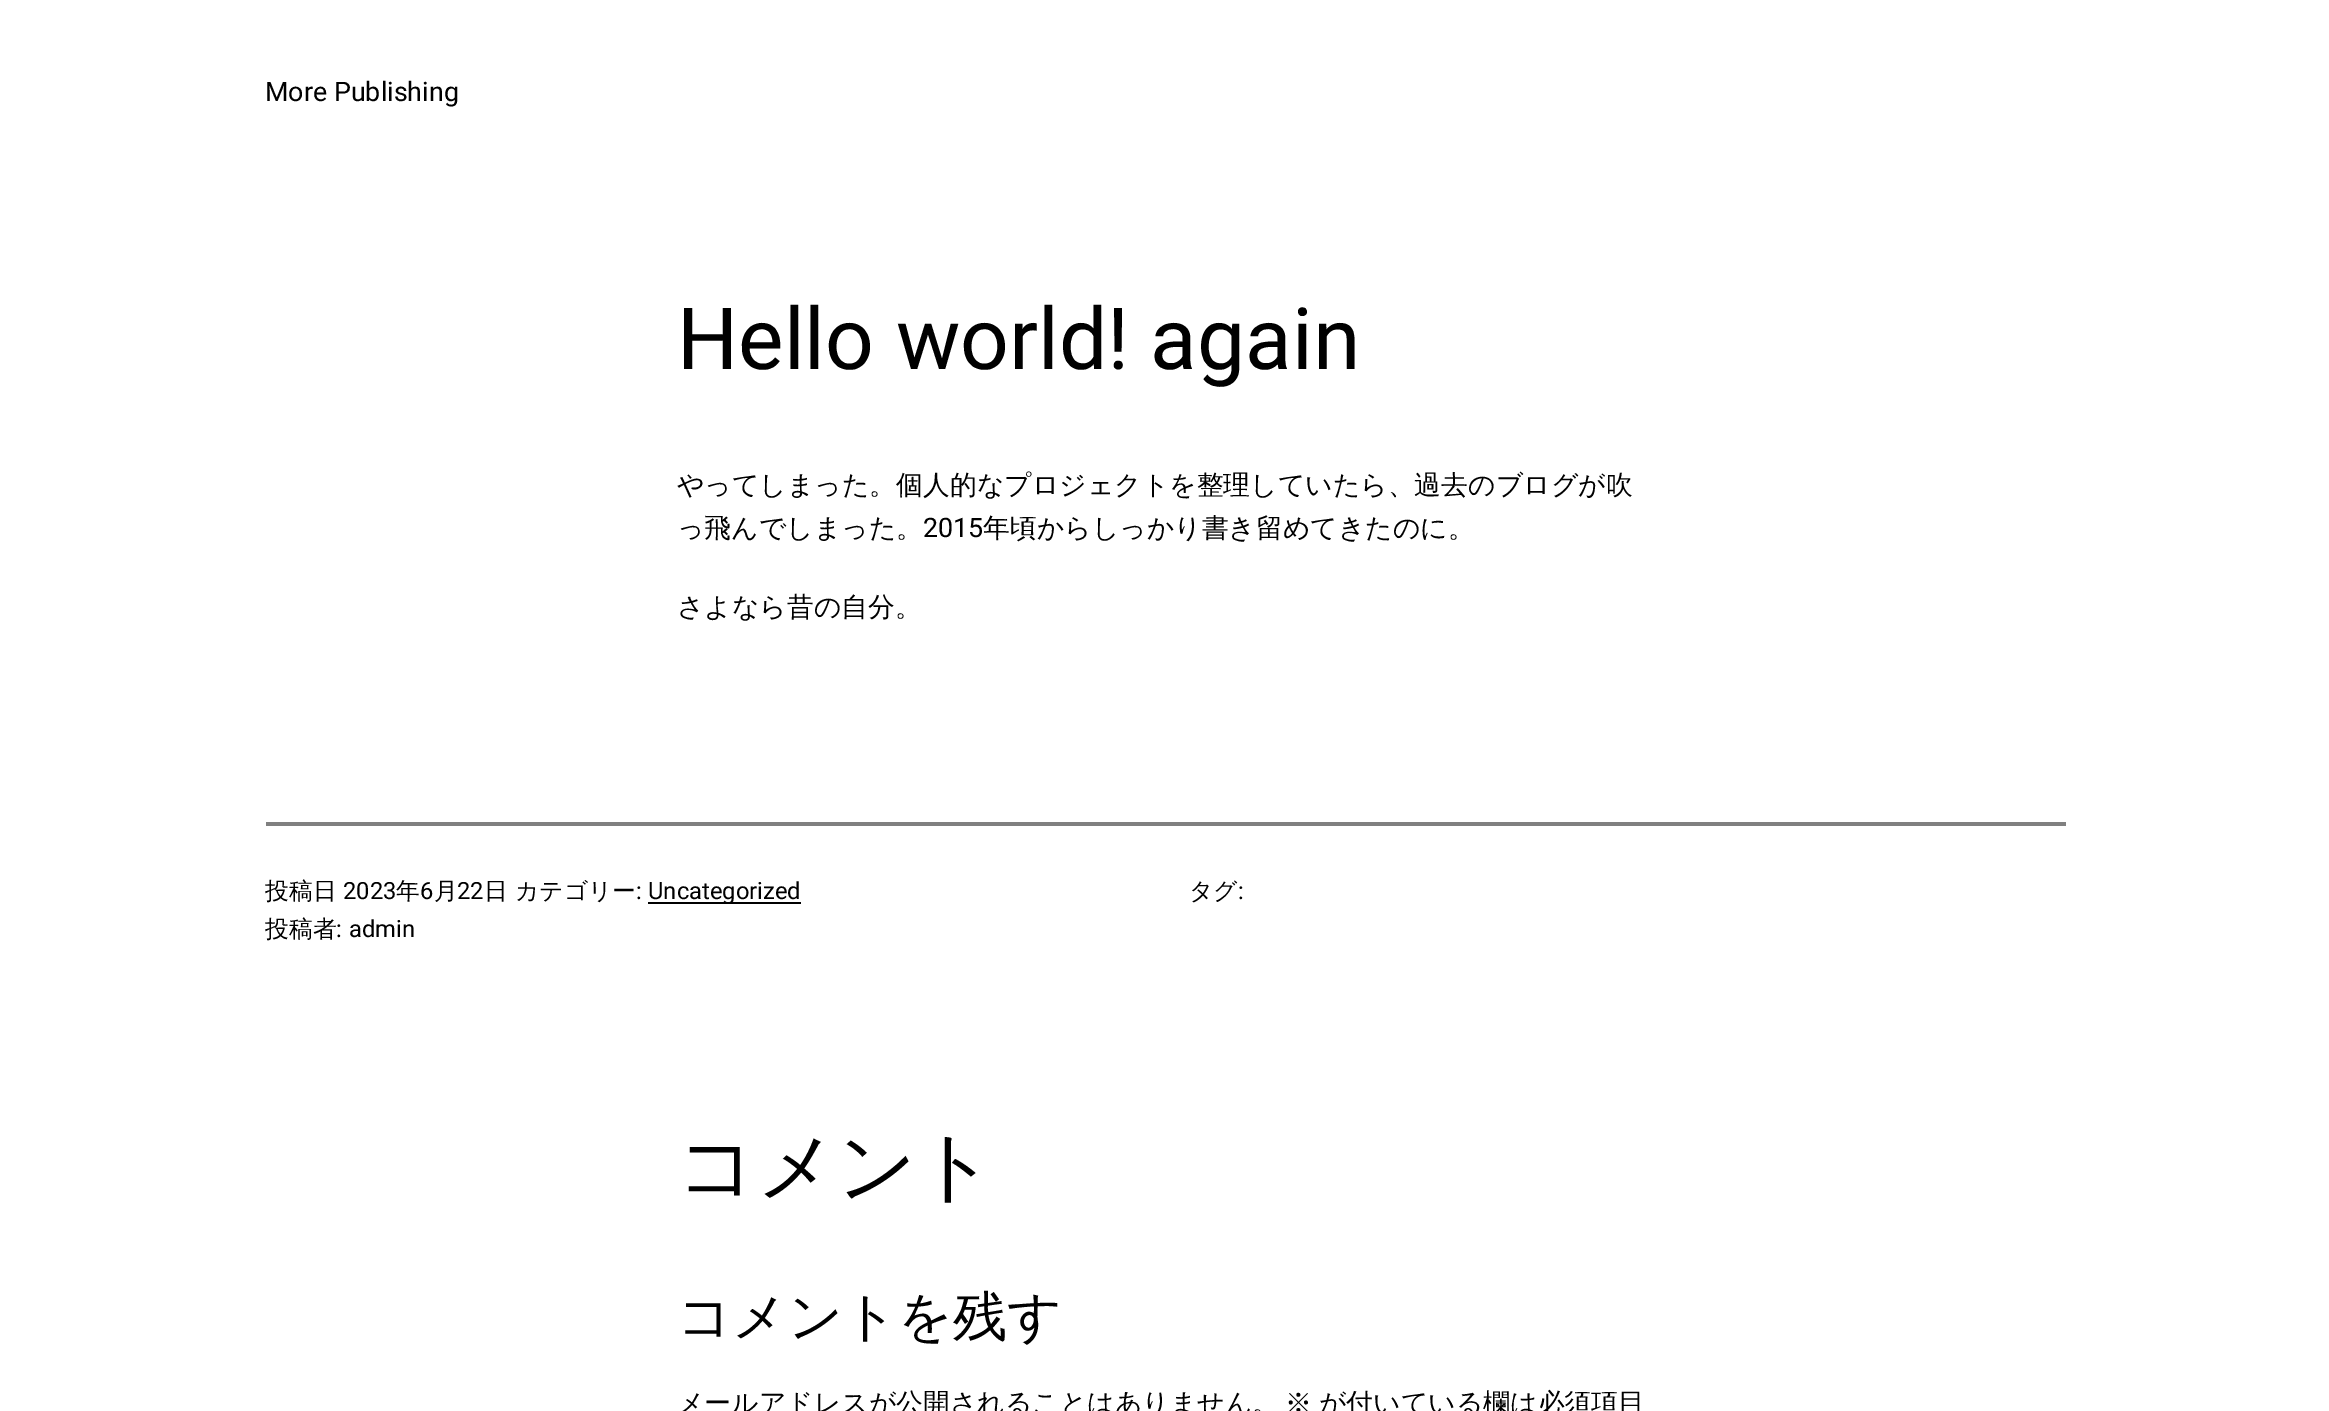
%!PS
<< /PageSize [2329 1411] >> setpagedevice
/rgb { dup -16 bitshift 255 div exch dup -8 bitshift 255 and 255 div exch 255 and 255 div setrgbcolor } def
/font { [ exch dup neg 0 0 3 -1 roll 0 0 ] selectfont } def
/text { moveto show } def
0 1411 translate 1 -1 scale
4 setmiterlimit
/s1 { /Roboto-Regular 26.85 font 16#000000 rgb } def
/s2 { /Roboto-Regular 85.75 font 16#000000 rgb } def
/s3 { /WenQuanYiZenHei-Medium 26.85 font 16#000000 rgb } def
/s4 { /WenQuanYiZenHei-Medium 23.75 font 16#000000 rgb } def
/s5 { /Roboto-Regular 23.75 font 16#000000 rgb } def
/s6 { /WenQuanYiZenHei-Medium 78 font 16#000000 rgb } def
/s7 { /WenQuanYiZenHei-Medium 54 font 16#000000 rgb } def
16#FFFFFF rgb
0 0 2329 1411 rectfill
s1
(More Publishing) 265 101 text
s2
(Hello world! again) 677 369 text
s3
(やってしまった。個人的なプロジェクトを整理していたら、過去のブログが吹) 677 494 text
(っ飛んでしまった。) 677 537 text
s1
(2015) 923 537 text
s3
(年頃からしっかり書き留めてきたのに。) 983 537 text
(さよなら昔の自分。) 677 616 text
16#808080 rgb
266 822 1800 4 rectfill
s4
(投稿日) 265 899 text
s5
(2023) 343 899 text
s4
(年) 396 899 text
s5
(6) 420 899 text
s4
(月) 434 899 text
s5
(22) 457 899 text
s4
(日) 484 899 text
(カテゴリー) 515 899 text
s5
(:) 636 899 text
648 902 153 2 rectfill
(Uncategorized) 648 899 text
s4
(投稿者) 265 937 text
s5
(:) 336 937 text
(admin) 349 937 text
s4
(タグ) 1189 899 text
s5
(:) 1238 899 text
s6
(コメント) 677 1193 text
s7
(コメントを残す) 677 1335 text
s3
(メールアドレスが公開されることはありません。) 677 1412 text
(※) 1285 1412 text
(が付いている欄は必須項目) 1319 1412 text
showpage
